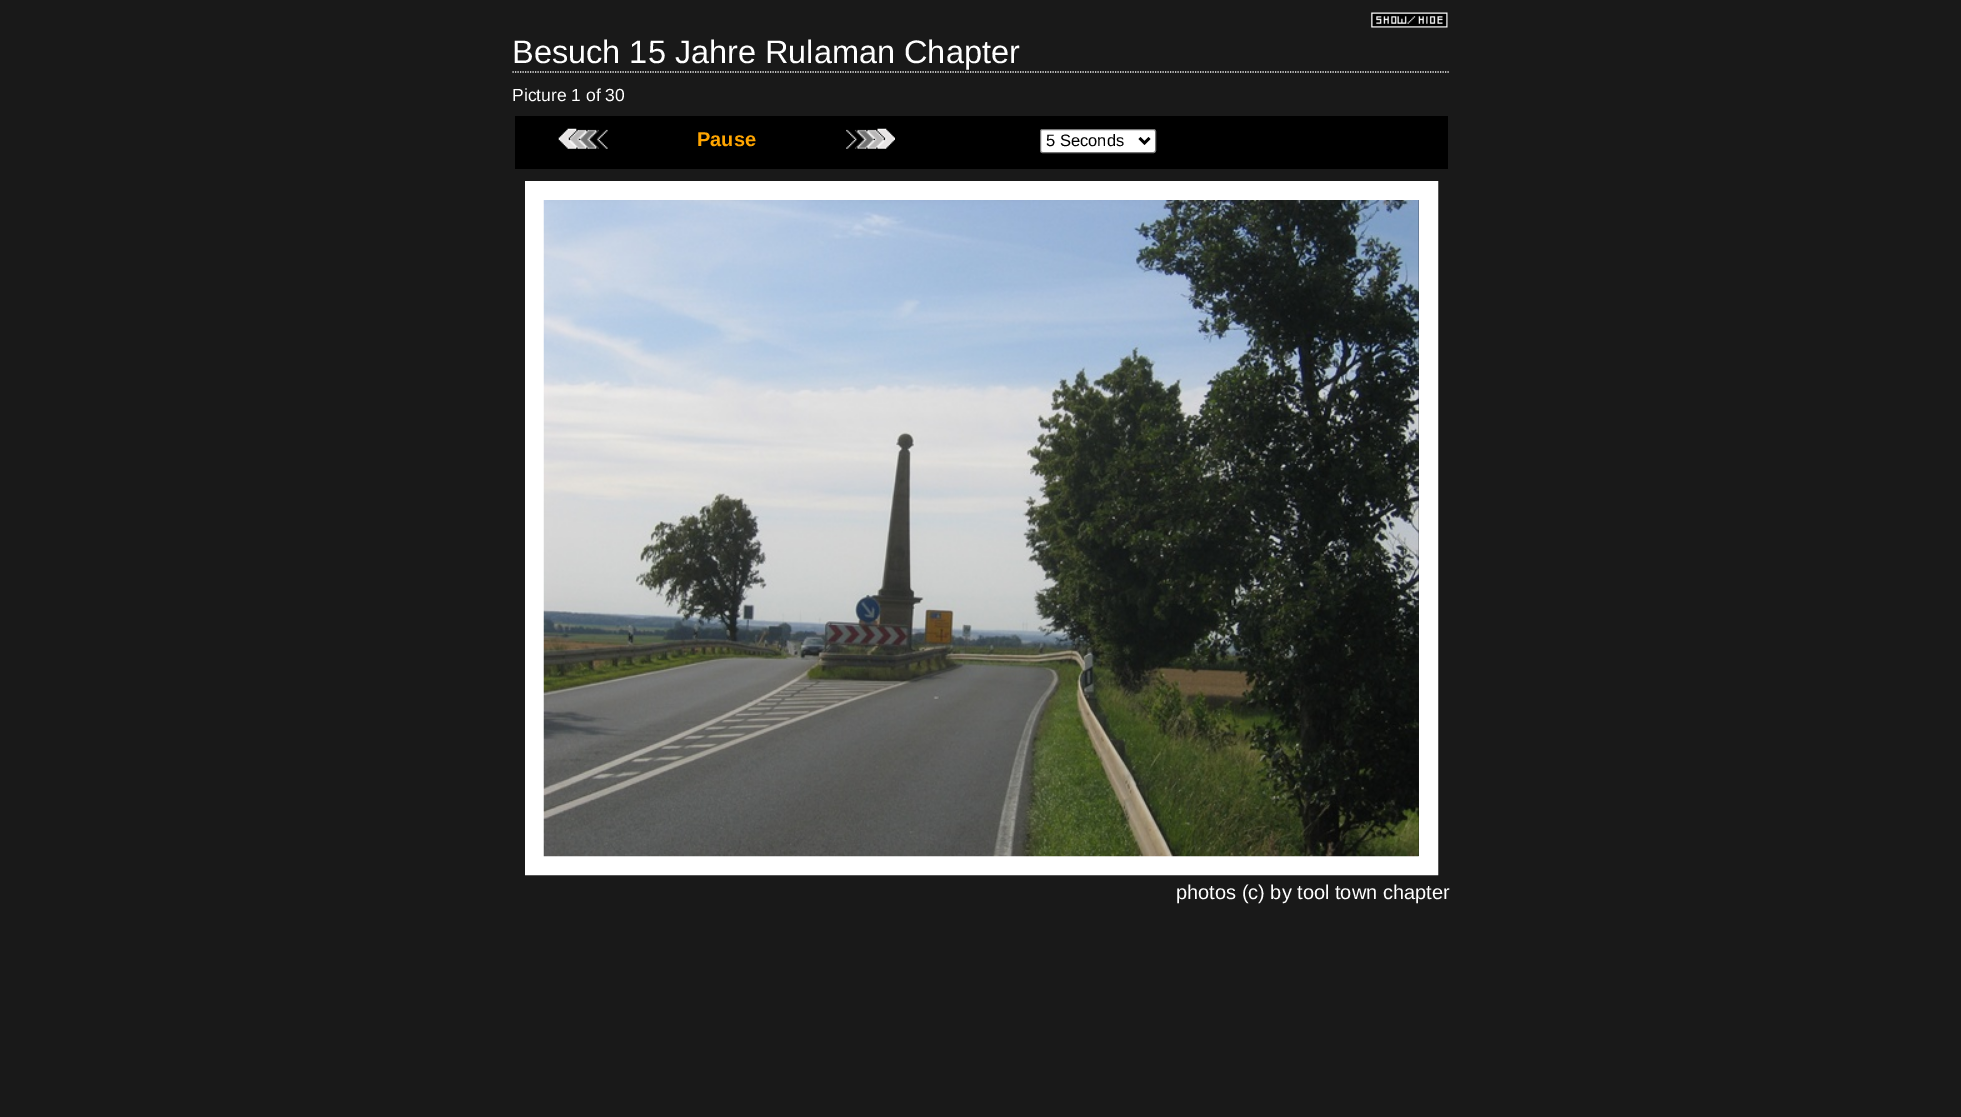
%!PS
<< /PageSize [1961 1117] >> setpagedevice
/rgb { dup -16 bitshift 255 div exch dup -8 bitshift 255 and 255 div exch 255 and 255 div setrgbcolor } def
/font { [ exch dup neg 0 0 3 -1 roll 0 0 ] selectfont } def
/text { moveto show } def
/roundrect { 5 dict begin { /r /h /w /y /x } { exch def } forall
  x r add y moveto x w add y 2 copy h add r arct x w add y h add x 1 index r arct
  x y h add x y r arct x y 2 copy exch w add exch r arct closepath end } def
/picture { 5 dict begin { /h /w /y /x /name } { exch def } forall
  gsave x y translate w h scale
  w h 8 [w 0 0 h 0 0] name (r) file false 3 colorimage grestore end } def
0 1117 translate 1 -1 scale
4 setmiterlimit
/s1 { /LiberationSans-Regular 32.5 font 16#FFFFFF rgb } def
/s2 { /LiberationSans-Regular 17.5 font 16#FFFFFF rgb } def
/s3 { /LiberationSans-Bold 20 font 16#FFA500 rgb } def
/s4 { /LiberationSans-Regular 16.5 font 16#000000 rgb } def
/s5 { /LiberationSans-Regular 20 font 16#FFFFFF rgb } def
16#191919 rgb
0 0 1961 1117 rectfill
(pic1.raw) 1371 12 77 16 picture
16#FFFFFF rgb
1.2 setlinewidth
[1.25 1.25] 0 setdash
512.5 72 moveto 1450 72 lineto stroke
s1
(Besuch 15 Jahre Rulaman Chapter) 512 63 text
s2
(Picture 1 of 30) 512 101 text
16#000000 rgb
515 116 933 53 rectfill
(pic2.raw) 558 128 50 21 picture
s3
(Pause) 697 146 text
(pic3.raw) 846 128 49 21 picture
16#FFFFFF rgb
1040.5 129.5 115 23 2 roundrect gsave fill grestore
16#767676 rgb
1 setlinewidth
[] 0 setdash
stroke
16#000000 rgb
2.5 setlinewidth
1139.5 138 moveto 1144.5 143 lineto 1149.5 138 lineto stroke
s4
(5 Seconds) 1046 146 text
16#FFFFFF rgb
19 setlinewidth
534.5 190.5 894 675 rectstroke
(pic4.raw) 543 200 876 657 picture
s5
(photos \(c\) by tool town chapter) 1176 899 text
showpage
